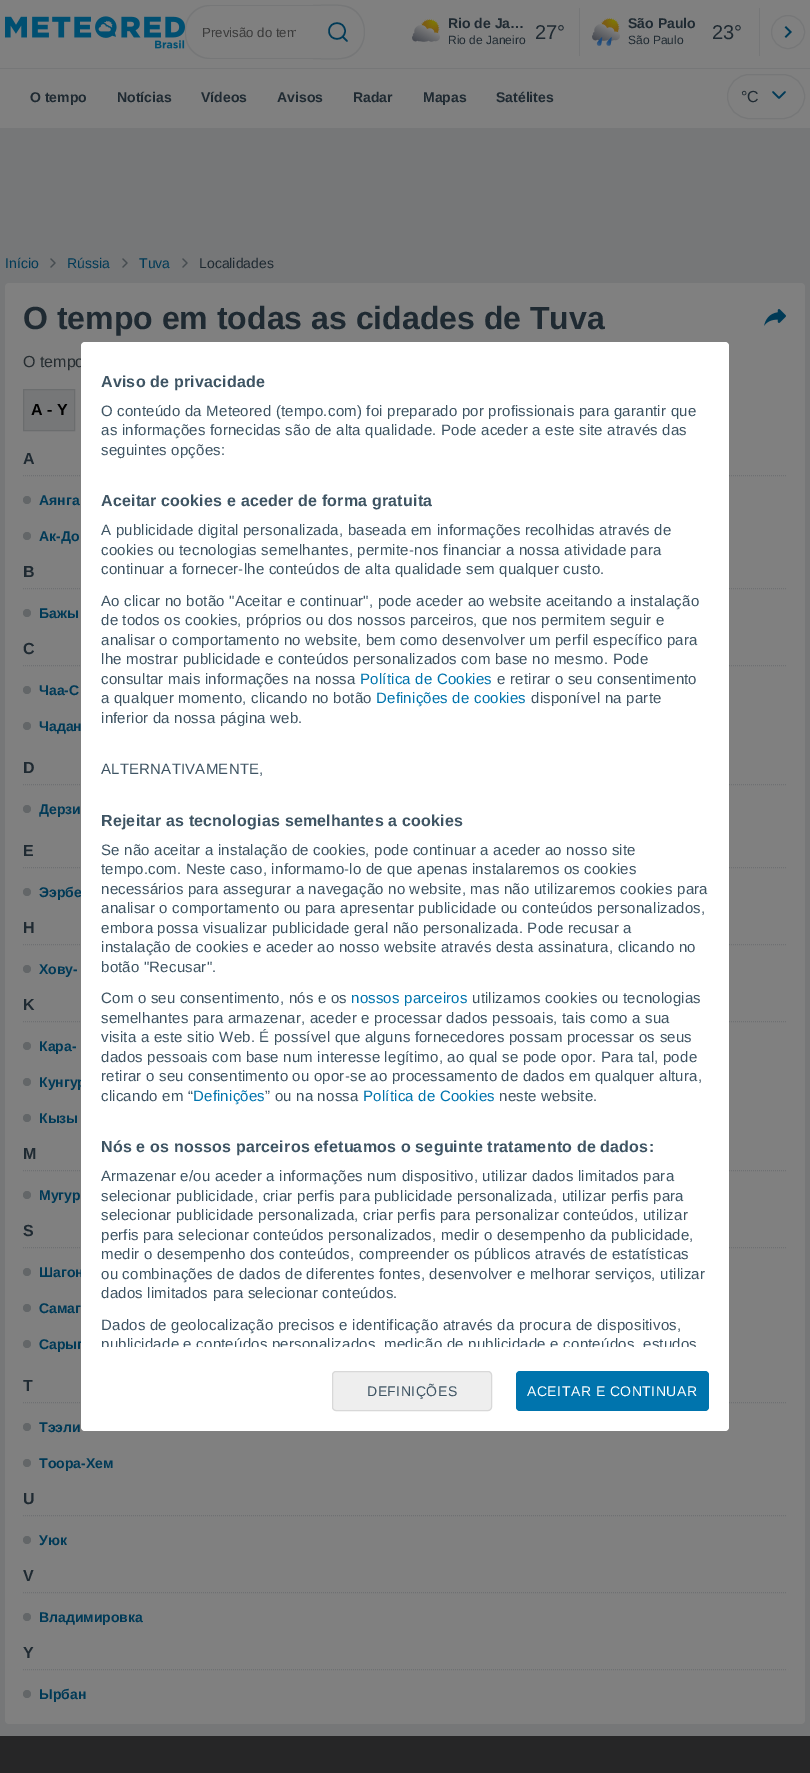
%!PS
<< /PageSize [810 1773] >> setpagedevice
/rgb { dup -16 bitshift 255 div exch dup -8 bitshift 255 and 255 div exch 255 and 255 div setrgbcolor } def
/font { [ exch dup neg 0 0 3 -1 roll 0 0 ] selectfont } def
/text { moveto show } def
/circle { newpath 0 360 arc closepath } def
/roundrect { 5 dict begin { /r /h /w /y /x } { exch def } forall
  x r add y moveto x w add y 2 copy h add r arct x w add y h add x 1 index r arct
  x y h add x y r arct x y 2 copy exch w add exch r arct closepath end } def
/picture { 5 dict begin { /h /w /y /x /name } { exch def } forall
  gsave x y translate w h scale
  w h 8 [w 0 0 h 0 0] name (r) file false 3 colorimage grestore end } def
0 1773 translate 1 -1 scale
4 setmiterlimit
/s1 { /LiberationSans-Regular 13.25 font 16#3B3B3B rgb } def
/s2 { /LiberationSans-Bold 14 font 16#1F2A32 rgb } def
/s3 { /LiberationSans-Regular 12 font 16#1F2A32 rgb } def
/s4 { /LiberationSans-Regular 20 font 16#1F2A32 rgb } def
/s5 { /LiberationSans-Regular 16 font 16#1F2A32 rgb } def
/s6 { /LiberationSans-Regular 14 font 16#003A57 rgb } def
/s7 { /LiberationSans-Regular 14 font 16#1F2A32 rgb } def
/s8 { /LiberationSans-Bold 32 font 16#1F2A32 rgb } def
/s9 { /LiberationSans-Regular 16 font 16#262D31 rgb } def
/s10 { /LiberationSans-Bold 16 font 16#000000 rgb } def
/s11 { /LiberationSans-Bold 16 font 16#1F2A32 rgb } def
/s12 { /LiberationSans-Bold 14 font 16#003A57 rgb } def
16#767778 rgb
0 0 810 1773 rectfill
16#808080 rgb
0 0 810 128 rectfill
16#767778 rgb
0 68 810 1 rectfill
(pic1.raw) 5 16 180 33 picture
210 5 moveto 312 5 lineto 312 59 lineto 210 59 lineto 196 59 185 48 185 34 curveto 185 30 lineto 185 16 196 5 210 5 curveto closepath 210 6 moveto 312 6 lineto 312 58 lineto 210 58 lineto 197 58 186 47 186 34 curveto 186 30 lineto 186 17 197 6 210 6 curveto closepath eofill
gsave
202 25 94 15 rectclip
s1
(Previsão do tem) 202 37 text
grestore
312 5 moveto 322 5 341 3 350 7 curveto 370 16 370 48 350 57 curveto 341 61 322 59 312 59 curveto closepath 312 6 moveto 322 6 341 4 349 8 curveto 369 16 369 48 349 56 curveto 341 60 322 58 312 58 curveto closepath eofill
16#003A57 rgb
1.5 setlinewidth
1 setlinecap
1 setlinejoin
347 41 moveto 342.5 36.5 lineto 345 31 moveto 345 41.5 329 41.5 329 31 curveto 329 20.5 345 20.5 345 31 curveto closepath stroke
(pic2.raw) 412 19 28 23 picture
s2
(Rio de Ja…) 448 28 text
s3
(Rio de Janeiro) 448 44 text
s4
(27°) 535 39 text
16#767778 rgb
579 8 1 48 rectfill
(pic3.raw) 592 18 28 28 picture
s2
(São Paulo) 628 28 text
s3
(São Paulo) 628 44 text
s4
(23°) 712 39 text
16#767778 rgb
759 8 1 48 rectfill
1 setlinewidth
0 setlinecap
0 setlinejoin
788 32 16.5 circle stroke
(pic4.raw) 784 26 8 12 picture
s2
(O tempo) 30 102 text
(Notícias) 117 102 text
(Vídeos) 201 102 text
(Avisos) 277 102 text
(Radar) 353 102 text
(Mapas) 423 102 text
(Satélites) 496 102 text
16#767778 rgb
727.5 74.5 77 44 22 roundrect stroke
s5
(°C) 741 102 text
16#003A57 rgb
1.5 setlinewidth
1 setlinecap
1 setlinejoin
773 92 moveto 779 98 lineto 785 92 lineto stroke
s6
(Início) 5 268 text
(pic5.raw) 50 258 6 10 picture
(Rússia) 67 268 text
(pic5.raw) 122 258 6 10 picture
(Tuva) 139 268 text
(pic5.raw) 182 258 6 10 picture
s7
(Localidades) 199 268 text
16#808080 rgb
5 283 800 1441 4 roundrect fill
s8
(O tempo em todas as cidades de Tuva) 23 329 text
(pic6.raw) 764 309 22 17 picture
s9
(O tempo) 23 367 text
16#767778 rgb
23.5 389.5 moveto 74.5 389.5 lineto 74.5 430.5 lineto 23.5 430.5 lineto closepath gsave fill grestore
16#6B6D6E rgb
1 setlinewidth
0 setlinecap
0 setlinejoin
stroke
s10
(A - Y) 31 415 text
16#6E7072 rgb
[1 1] 0 setdash
23 475.5 moveto 787 475.5 lineto stroke
s11
(A) 23 464 text
16#636668 rgb
27 500 4 circle fill
s12
(Аянга) 39 505 text
16#636668 rgb
27 536 4 circle fill
s12
(Ак-До) 39 541 text
16#6E7072 rgb
23 588.5 moveto 787 588.5 lineto stroke
s11
(B) 23 577 text
16#636668 rgb
27 613 4 circle fill
s12
(Бажы) 39 618 text
16#6E7072 rgb
23 665.5 moveto 787 665.5 lineto stroke
s11
(C) 23 654 text
16#636668 rgb
27 690 4 circle fill
s12
(Чаа-С) 39 695 text
16#636668 rgb
27 726 4 circle fill
s12
(Чадан) 39 731 text
16#6E7072 rgb
23 784.5 moveto 787 784.5 lineto stroke
s11
(D) 23 773 text
16#636668 rgb
27 809 4 circle fill
s12
(Дерзи) 39 814 text
16#6E7072 rgb
23 867.5 moveto 787 867.5 lineto stroke
s11
(E) 23 856 text
16#636668 rgb
27 892 4 circle fill
s12
(Ээрбе) 39 897 text
16#6E7072 rgb
23 944.5 moveto 787 944.5 lineto stroke
s11
(H) 23 933 text
16#636668 rgb
27 969 4 circle fill
s12
(Хову-) 39 974 text
16#6E7072 rgb
23 1021.5 moveto 787 1021.5 lineto stroke
s11
(K) 23 1010 text
16#636668 rgb
27 1046 4 circle fill
s12
(Кара-) 39 1051 text
16#636668 rgb
27 1082 4 circle fill
s12
(Кунгур) 39 1087 text
16#636668 rgb
27 1118 4 circle fill
s12
(Кызы) 39 1123 text
16#6E7072 rgb
23 1170.5 moveto 787 1170.5 lineto stroke
s11
(M) 23 1159 text
16#636668 rgb
27 1195 4 circle fill
s12
(Мугур) 39 1200 text
16#6E7072 rgb
23 1247.5 moveto 787 1247.5 lineto stroke
s11
(S) 23 1236 text
16#636668 rgb
27 1272 4 circle fill
s12
(Шагон) 39 1277 text
16#636668 rgb
27 1308 4 circle fill
s12
(Самаг) 39 1313 text
16#636668 rgb
27 1344 4 circle fill
s12
(Сарыг) 39 1349 text
16#6E7072 rgb
23 1402.5 moveto 787 1402.5 lineto stroke
s11
(T) 23 1391 text
16#636668 rgb
27 1427 4 circle fill
s12
(Тээли) 39 1432 text
16#636668 rgb
27 1463 4 circle fill
s12
(Тоора-Хем) 39 1468 text
16#6E7072 rgb
23 1515.5 moveto 787 1515.5 lineto stroke
s11
(U) 23 1504 text
16#636668 rgb
27 1540 4 circle fill
s12
(Уюк) 39 1545 text
16#6E7072 rgb
23 1592.5 moveto 787 1592.5 lineto stroke
s11
(V) 23 1581 text
16#636668 rgb
27 1617 4 circle fill
s12
(Владимировка) 39 1622 text
16#6E7072 rgb
23 1669.5 moveto 787 1669.5 lineto stroke
s11
(Y) 23 1658 text
16#636668 rgb
27 1694 4 circle fill
s12
(Ырбан) 39 1699 text
16#FFFFFF rgb
81 342 648 1089 4 roundrect fill
/LiberationSans-Bold 16 font
16#3E5463 rgb
101 387 moveto 0.2 0 (Aviso de privacidade) ashow
/LiberationSans-Regular 15 font
101 416 moveto 0.2 0 (O conteúdo da Meteored \(tempo.com\) foi preparado por profissionais para garantir que) ashow
101 435 moveto 0.2 0 (as informações fornecidas são de alta qualidade. Pode aceder a este site através das) ashow
101 455 moveto 0.2 0 (seguintes opções:) ashow
/LiberationSans-Bold 16 font
101 506 moveto 0.2 0 (Aceitar cookies e aceder de forma gratuita) ashow
/LiberationSans-Regular 15 font
101 535 moveto 0.2 0 (A publicidade digital personalizada, baseada em informações recolhidas através de) ashow
101 555 moveto 0.2 0 (cookies ou tecnologias semelhantes, permite-nos financiar a nossa atividade para) ashow
101 574 moveto 0.2 0 (continuar a fornecer-lhe conteúdos de alta qualidade sem qualquer custo.) ashow
101 606 moveto 0.2 0 (Ao clicar no botão "Aceitar e continuar", pode aceder ao website aceitando a instalação) ashow
101 625 moveto 0.2 0 (de todos os cookies, próprios ou dos nossos parceiros, que nos permitem seguir e) ashow
101 645 moveto 0.2 0 (analisar o comportamento no website, bem como desenvolver um perfil específico para) ashow
101 664 moveto 0.2 0 (lhe mostrar publicidade e conteúdos personalizados com base no mesmo. Pode) ashow
101 684 moveto 0.2 0 (consultar mais informações na nossa) ashow
16#0074AD rgb
360 684 moveto 0.2 0 (Política de Cookies) ashow
16#3E5463 rgb
497 684 moveto 0.2 0 (e retirar o seu consentimento) ashow
101 703 moveto 0.2 0 (a qualquer momento, clicando no botão) ashow
16#0074AD rgb
376 703 moveto 0.2 0 (Definições de cookies) ashow
16#3E5463 rgb
531 703 moveto 0.2 0 (disponível na parte) ashow
101 723 moveto 0.2 0 (inferior da nossa página web.) ashow
101 774 moveto 0.2 0 (ALTERNATIVAMENTE,) ashow
/LiberationSans-Bold 16 font
101 826 moveto 0.2 0 (Rejeitar as tecnologias semelhantes a cookies) ashow
/LiberationSans-Regular 15 font
101 855 moveto 0.2 0 (Se não aceitar a instalação de cookies, pode continuar a aceder ao nosso site) ashow
101 874 moveto 0.2 0 (tempo.com. Neste caso, informamo-lo de que apenas instalaremos os cookies) ashow
101 894 moveto 0.2 0 (necessários para assegurar a navegação no website, mas não utilizaremos cookies para) ashow
101 913 moveto 0.2 0 (analisar o comportamento ou para apresentar publicidade ou conteúdos personalizados,) ashow
101 933 moveto 0.2 0 (embora possa visualizar publicidade geral não personalizada. Pode recusar a) ashow
101 952 moveto 0.2 0 (instalação de cookies e aceder ao nosso website através desta assinatura, clicando no) ashow
101 972 moveto 0.2 0 (botão "Recusar".) ashow
101 1003 moveto 0.2 0 (Com o seu consentimento, nós e os) ashow
16#0074AD rgb
351 1003 moveto 0.2 0 (nossos parceiros) ashow
16#3E5463 rgb
472 1003 moveto 0.2 0 (utilizamos cookies ou tecnologias) ashow
101 1023 moveto 0.2 0 (semelhantes para armazenar, aceder e processar dados pessoais, tais como a sua) ashow
101 1042 moveto 0.2 0 (visita a este sitio Web. É possível que alguns fornecedores possam processar os seus) ashow
101 1062 moveto 0.2 0 (dados pessoais com base num interesse legítimo, ao qual se pode opor. Para tal, pode) ashow
101 1081 moveto 0.2 0 (retirar o seu consentimento ou opor-se ao processamento de dados em qualquer altura,) ashow
101 1101 moveto 0.2 0 (clicando em “) ashow
16#0074AD rgb
193 1101 moveto 0.2 0 (Definições) ashow
16#3E5463 rgb
265 1101 moveto 0.2 0 (” ou na nossa) ashow
16#0074AD rgb
363 1101 moveto 0.2 0 (Política de Cookies) ashow
16#3E5463 rgb
499 1101 moveto 0.2 0 (neste website.) ashow
/LiberationSans-Bold 16 font
101 1152 moveto 0.2 0 (Nós e os nossos parceiros efetuamos o seguinte tratamento de dados:) ashow
/LiberationSans-Regular 15 font
101 1181 moveto 0.2 0 (Armazenar e/ou aceder a informações num dispositivo, utilizar dados limitados para) ashow
101 1201 moveto 0.2 0 (selecionar publicidade, criar perfis para publicidade personalizada, utilizar perfis para) ashow
101 1220 moveto 0.2 0 (selecionar publicidade personalizada, criar perfis para personalizar conteúdos, utilizar) ashow
101 1240 moveto 0.2 0 (perfis para selecionar conteúdos personalizados, medir o desempenho da publicidade,) ashow
101 1259 moveto 0.2 0 (medir o desempenho dos conteúdos, compreender os públicos através de estatísticas) ashow
101 1279 moveto 0.2 0 (ou combinações de dados de diferentes fontes, desenvolver e melhorar serviços, utilizar) ashow
101 1298 moveto 0.2 0 (dados limitados para selecionar conteúdos.) ashow
101 1330 moveto 0.2 0 (Dados de geolocalização precisos e identificação através da procura de dispositivos,) ashow
gsave
101 372 608 975 rectclip
101 1349 moveto 0.2 0 (publicidade e conteúdos personalizados, medição de publicidade e conteúdos, estudos) ashow
grestore
16#EEEEEE rgb
332.5 1371.5 159 39 3.5 roundrect gsave fill grestore
16#D8D8D8 rgb
[] 0 setdash
stroke
/LiberationSans-Regular 14 font
16#3E5463 rgb
367 1396 moveto 0.5 0 (DEFINIÇÕES) ashow
16#0074AD rgb
516 1371 193 40 4 roundrect fill
16#FFFFFF rgb
527 1396 moveto 0.5 0 (ACEITAR E CONTINUAR) ashow
16#262627 rgb
0 1736 810 37 rectfill
showpage
